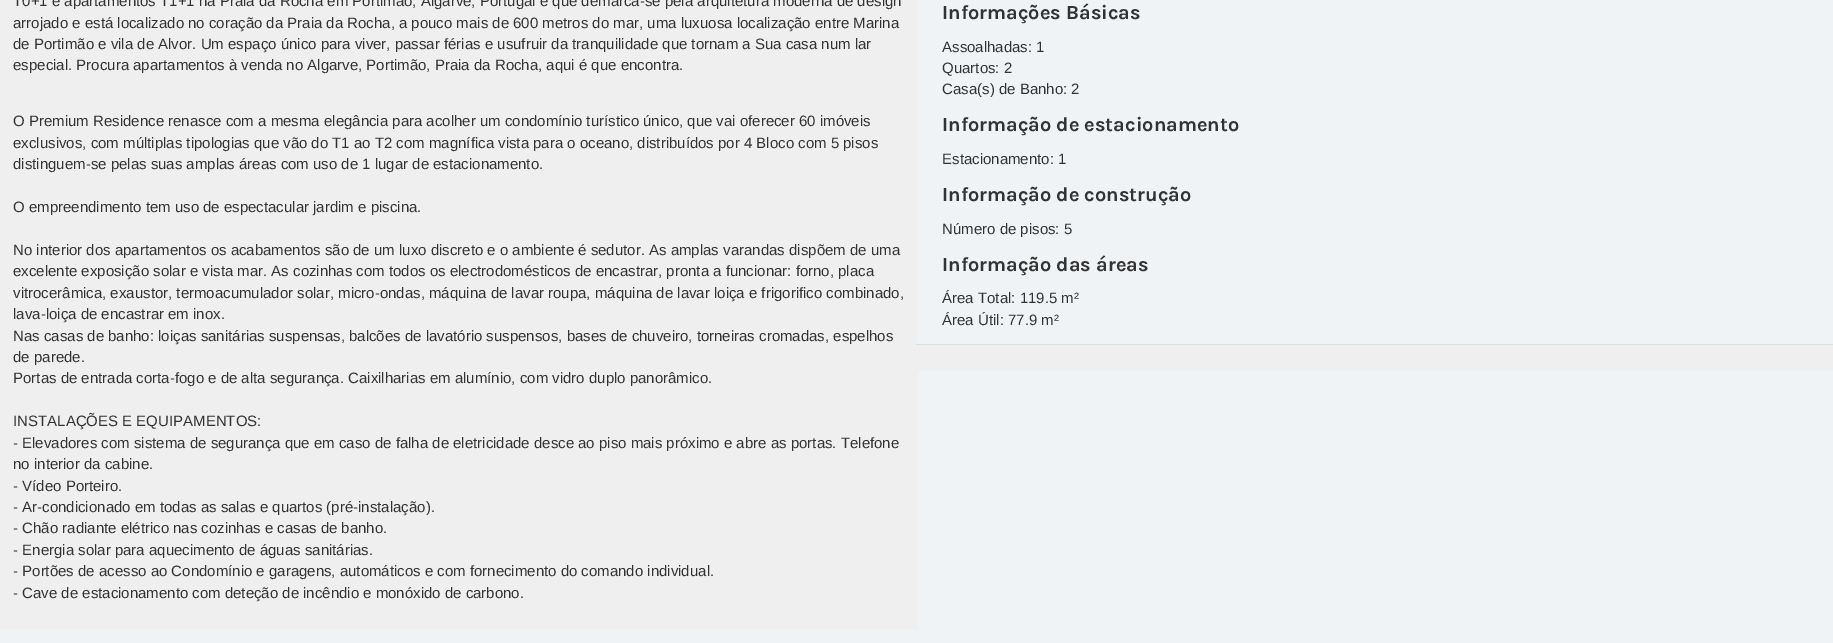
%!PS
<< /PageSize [1833 643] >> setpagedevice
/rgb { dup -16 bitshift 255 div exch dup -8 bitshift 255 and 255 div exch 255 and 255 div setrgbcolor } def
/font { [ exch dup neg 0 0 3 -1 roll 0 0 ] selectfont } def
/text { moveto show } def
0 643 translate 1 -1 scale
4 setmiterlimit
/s1 { /LiberationSans-Regular 15 font 16#333333 rgb } def
/s2 { /Karla-Bold 20 font 16#333333 rgb } def
16#F0F3F6 rgb
0 0 1833 643 rectfill
16#EFEFEF rgb
0 0 918 630 rectfill
s1
(T0+1 e apartamentos T1+1 na Praia da Rocha em Portimão, Algarve, Portugal e que demarca-se pela arquitetura moderna de design) 13 6 text
(arrojado e está localizado no coração da Praia da Rocha, a pouco mais de 600 metros do mar, uma luxuosa localização entre Marina) 13 28 text
(de Portimão e vila de Alvor. Um espaço único para viver, passar férias e usufruir da tranquilidade que tornam a Sua casa num lar) 13 49 text
(especial. Procura apartamentos à venda no Algarve, Portimão, Praia da Rocha, aqui é que encontra.) 13 70 text
(O Premium Residence renasce com a mesma elegância para acolher um condomínio turístico único, que vai oferecer 60 imóveis) 13 126 text
(exclusivos, com múltiplas tipologias que vão do T1 ao T2 com magnífica vista para o oceano, distribuídos por 4 Bloco com 5 pisos) 13 148 text
(distinguem-se pelas suas amplas áreas com uso de 1 lugar de estacionamento.) 13 169 text
(O empreendimento tem uso de espectacular jardim e piscina.) 13 212 text
(No interior dos apartamentos os acabamentos são de um luxo discreto e o ambiente é sedutor. As amplas varandas dispõem de uma) 13 255 text
(excelente exposição solar e vista mar. As cozinhas com todos os electrodomésticos de encastrar, pronta a funcionar: forno, placa) 13 276 text
(vitrocerâmica, exaustor, termoacumulador solar, micro-ondas, máquina de lavar roupa, máquina de lavar loiça e frigorifico combinado,) 13 298 text
(lava-loiça de encastrar em inox.) 13 319 text
(Nas casas de banho: loiças sanitárias suspensas, balcões de lavatório suspensos, bases de chuveiro, torneiras cromadas, espelhos) 13 341 text
(de parede.) 13 362 text
(Portas de entrada corta-fogo e de alta segurança. Caixilharias em alumínio, com vidro duplo panorâmico.) 13 383 text
(INSTALAÇÕES E EQUIPAMENTOS:) 13 426 text
(- Elevadores com sistema de segurança que em caso de falha de eletricidade desce ao piso mais próximo e abre as portas. Telefone) 13 448 text
(no interior da cabine.) 13 469 text
(- Vídeo Porteiro.) 13 491 text
(- Ar-condicionado em todas as salas e quartos \(pré-instalação\).) 13 512 text
(- Chão radiante elétrico nas cozinhas e casas de banho.) 13 533 text
(- Energia solar para aquecimento de águas sanitárias.) 13 555 text
(- Portões de acesso ao Condomínio e garagens, automáticos e com fornecimento do comando individual.) 13 576 text
(- Cave de estacionamento com deteção de incêndio e monóxido de carbono.) 13 598 text
s2
(Informações Básicas) 942 19 text
s1
(Assoalhadas: 1) 942 52 text
(Quartos: 2) 942 73 text
(Casa\(s\) de Banho: 2) 942 94 text
s2
(Informação de estacionamento) 942 131 text
s1
(Estacionamento: 1) 942 164 text
s2
(Informação de construção) 942 201 text
s1
(Número de pisos: 5) 942 234 text
s2
(Informação das áreas) 942 271 text
s1
(Área Total: 119.5 m²) 942 303 text
(Área Útil: 77.9 m²) 942 325 text
16#EFEFEF rgb
918 345 915 25 rectfill
16#DDDDDD rgb
916 344 917 1 rectfill
showpage
